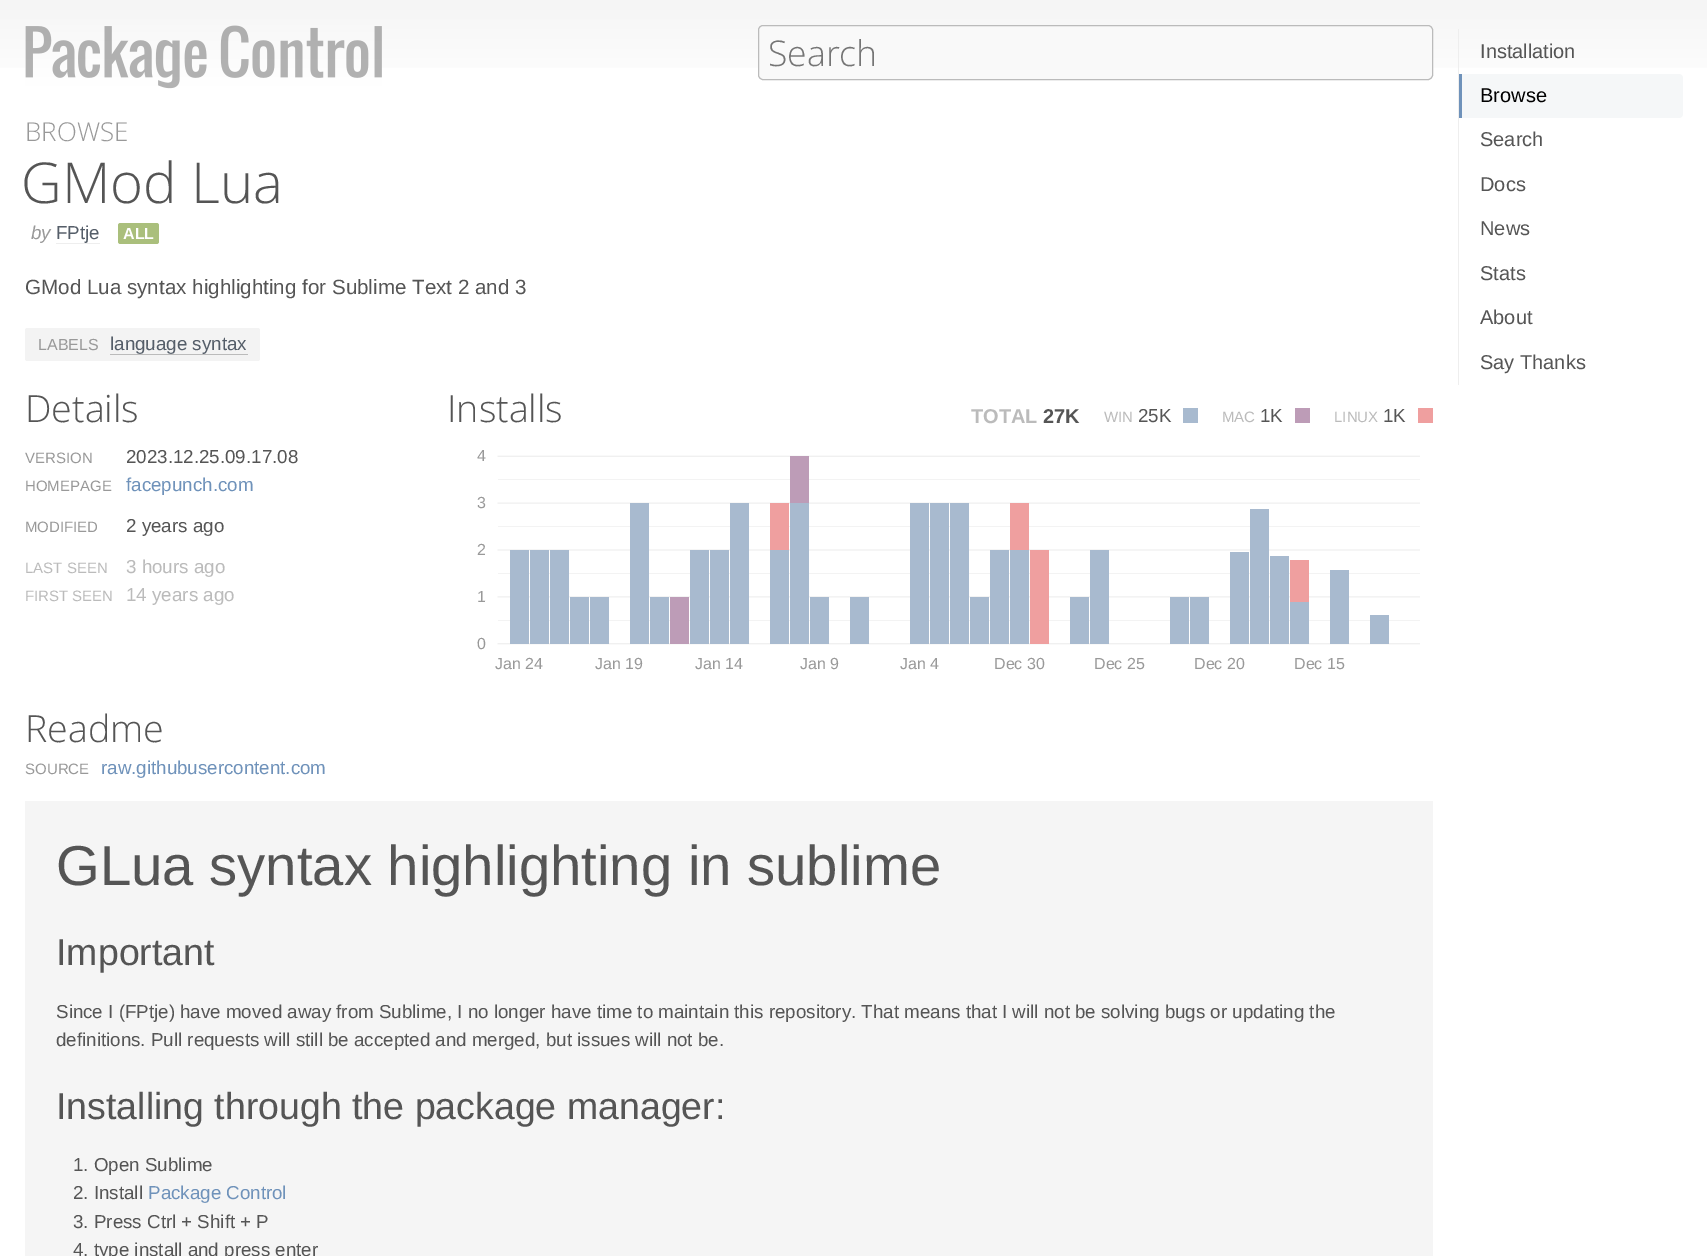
%!PS
<< /PageSize [1707 1256] >> setpagedevice
/rgb { dup -16 bitshift 255 div exch dup -8 bitshift 255 and 255 div exch 255 and 255 div setrgbcolor } def
/font { [ exch dup neg 0 0 3 -1 roll 0 0 ] selectfont } def
/text { moveto show } def
/roundrect { 5 dict begin { /r /h /w /y /x } { exch def } forall
  x r add y moveto x w add y 2 copy h add r arct x w add y h add x 1 index r arct
  x y h add x y r arct x y 2 copy exch w add exch r arct closepath end } def
/picture { 5 dict begin { /h /w /y /x /name } { exch def } forall
  gsave x y translate w h scale
  w h 8 [w 0 0 h 0 0] name (r) file false 3 colorimage grestore end } def
0 1256 translate 1 -1 scale
4 setmiterlimit
/s1 { /OpenSans-Light 35.5 font 16#757575 rgb } def
/s2 { /LiberationSans-Regular 20 font 16#555555 rgb } def
/s3 { /LiberationSans-Regular 20 font 16#000000 rgb } def
/s4 { /OpenSans-Light 26 font 16#999999 rgb } def
/s5 { /OpenSans-Light 56.25 font 16#555555 rgb } def
/s6 { /LiberationSans-Italic 18.75 font 16#999999 rgb } def
/s7 { /LiberationSans-Regular 18.75 font 16#555E69 rgb } def
/s8 { /LiberationSans-Bold 16 font 16#FFFFFF rgb } def
/s9 { /LiberationSans-Regular 20.6 font 16#555555 rgb } def
/s10 { /LiberationSans-Regular 16 font 16#999999 rgb } def
/s11 { /OpenSans-Light 37.5 font 16#555555 rgb } def
/s12 { /LiberationSans-Regular 15 font 16#999999 rgb } def
/s13 { /LiberationSans-Regular 18.75 font 16#555555 rgb } def
/s14 { /LiberationSans-Regular 18.75 font 16#6F92BA rgb } def
/s15 { /LiberationSans-Regular 15 font 16#BBBBBB rgb } def
/s16 { /LiberationSans-Regular 18.75 font 16#BBBBBB rgb } def
/s17 { /LiberationSans-Bold 20 font 16#BBBBBB rgb } def
/s18 { /LiberationSans-Bold 20 font 16#555555 rgb } def
/s19 { /LiberationSans-Regular 56.25 font 16#555555 rgb } def
/s20 { /LiberationSans-Regular 37.5 font 16#555555 rgb } def
16#FFFFFF rgb
0 0 1707 1256 rectfill
gsave 0 0 moveto 1707 0 lineto 1707 68 lineto 0 68 lineto closepath clip newpath
<< /ShadingType 2 /ColorSpace /DeviceRGB /Coords [854 0 854 91] /Extend [true true] /Function << /FunctionType 2 /Domain [0 1] /C0 [0.961 0.961 0.961] /C1 [1 1 1] /N 1 >> >> shfill grestore
(pic1.raw) 25 25 357 64 picture
16#F9F9F9 rgb
758.5 25.5 674 54 4.5 roundrect gsave fill grestore
16#BBBBBB rgb
stroke
s1
(Search) 768 66 text
16#EEEEEE rgb
1458 29 1 356 rectfill
s2
(Installation) 1480 58 text
16#F5F7F8 rgb
1459 74 moveto 1679 74 lineto 1681 74 1683 76 1683 78 curveto 1683 114 lineto 1683 116 1681 118 1679 118 curveto 1459 118 lineto closepath fill
16#6F92BA rgb
1459 74 3 44 rectfill
s3
(Browse) 1480 102 text
s2
(Search) 1480 146 text
(Docs) 1480 191 text
(News) 1480 235 text
(Stats) 1480 280 text
(About) 1480 324 text
(Say Thanks) 1480 369 text
s4
(BROWSE) 25 141 text
s5
(GMod Lua) 21 203 text
s6
(by) 31 239 text
s7
(FPtje) 56 239 text
16#EEEEEE rgb
56 243 44 1 rectfill
16#AABF7C rgb
118 223 41 21 2.5 roundrect fill
s8
(ALL) 123 239 text
s9
(GMod Lua syntax highlighting for Sublime Text 2 and 3) 25 294 text
16#F3F3F3 rgb
25 328 235 33 2.5 roundrect fill
s10
(LABELS) 38 350 text
s7
(language syntax) 110 350 text
16#BBBBBB rgb
110 354 138 1 rectfill
s11
(Details) 25 422 text
s12
(VERSION) 25 463 text
s13
(2023.12.25.09.17.08) 126 463 text
s12
(HOMEPAGE) 25 491 text
s14
(facepunch.com) 126 491 text
s12
(MODIFIED) 25 532 text
s13
(2 years ago) 126 532 text
s15
(LAST SEEN) 25 573 text
s16
(3 hours ago) 126 573 text
s15
(FIRST SEEN) 25 601 text
s16
(14 years ago) 126 601 text
s11
(Installs) 447 422 text
s17
(TOTAL) 971 423 text
s18
(27K) 1043 423 text
s15
(WIN) 1104 422 text
s13
(25K) 1138 422 text
16#A8BACF rgb
1183 408 15 15 rectfill
s15
(MAC) 1222 422 text
s13
(1K) 1260 422 text
16#BD9CB7 rgb
1295 408 15 15 rectfill
s15
(LINUX) 1334 422 text
s13
(1K) 1383 422 text
16#EF9F9F rgb
1418 408 15 15 rectfill
s10
(4) 477 461 text
(pic2.raw) 497 455 923 190 picture
(3) 477 508 text
(2) 477 555 text
(1) 477 602 text
(0) 477 649 text
(Jan 24) 495 669 text
(Jan 19) 595 669 text
(Jan 14) 695 669 text
(Jan 9) 800 669 text
(Jan 4) 900 669 text
(Dec 30) 994 669 text
(Dec 25) 1094 669 text
(Dec 20) 1194 669 text
(Dec 15) 1294 669 text
s11
(Readme) 25 742 text
s12
(SOURCE) 25 774 text
s14
(raw.githubusercontent.com) 101 774 text
16#F5F5F5 rgb
25 801 1408 455 rectfill
s19
(GLua syntax highlighting in sublime) 56 885 text
s20
(Important) 56 965 text
s13
(Since I \(FPtje\) have moved away from Sublime, I no longer have time to maintain this repository. That means that I will not be solving bugs or updating the) 56 1018 text
(definitions. Pull requests will still be accepted and merged, but issues will not be.) 56 1046 text
s20
(Installing through the package manager:) 56 1119 text
s13
(1. Open Sublime) 73 1171 text
(2. Install) 73 1199 text
s14
(Package Control) 148 1199 text
s13
(3. Press Ctrl + Shift + P) 73 1228 text
(4. type install and press enter) 73 1256 text
showpage
